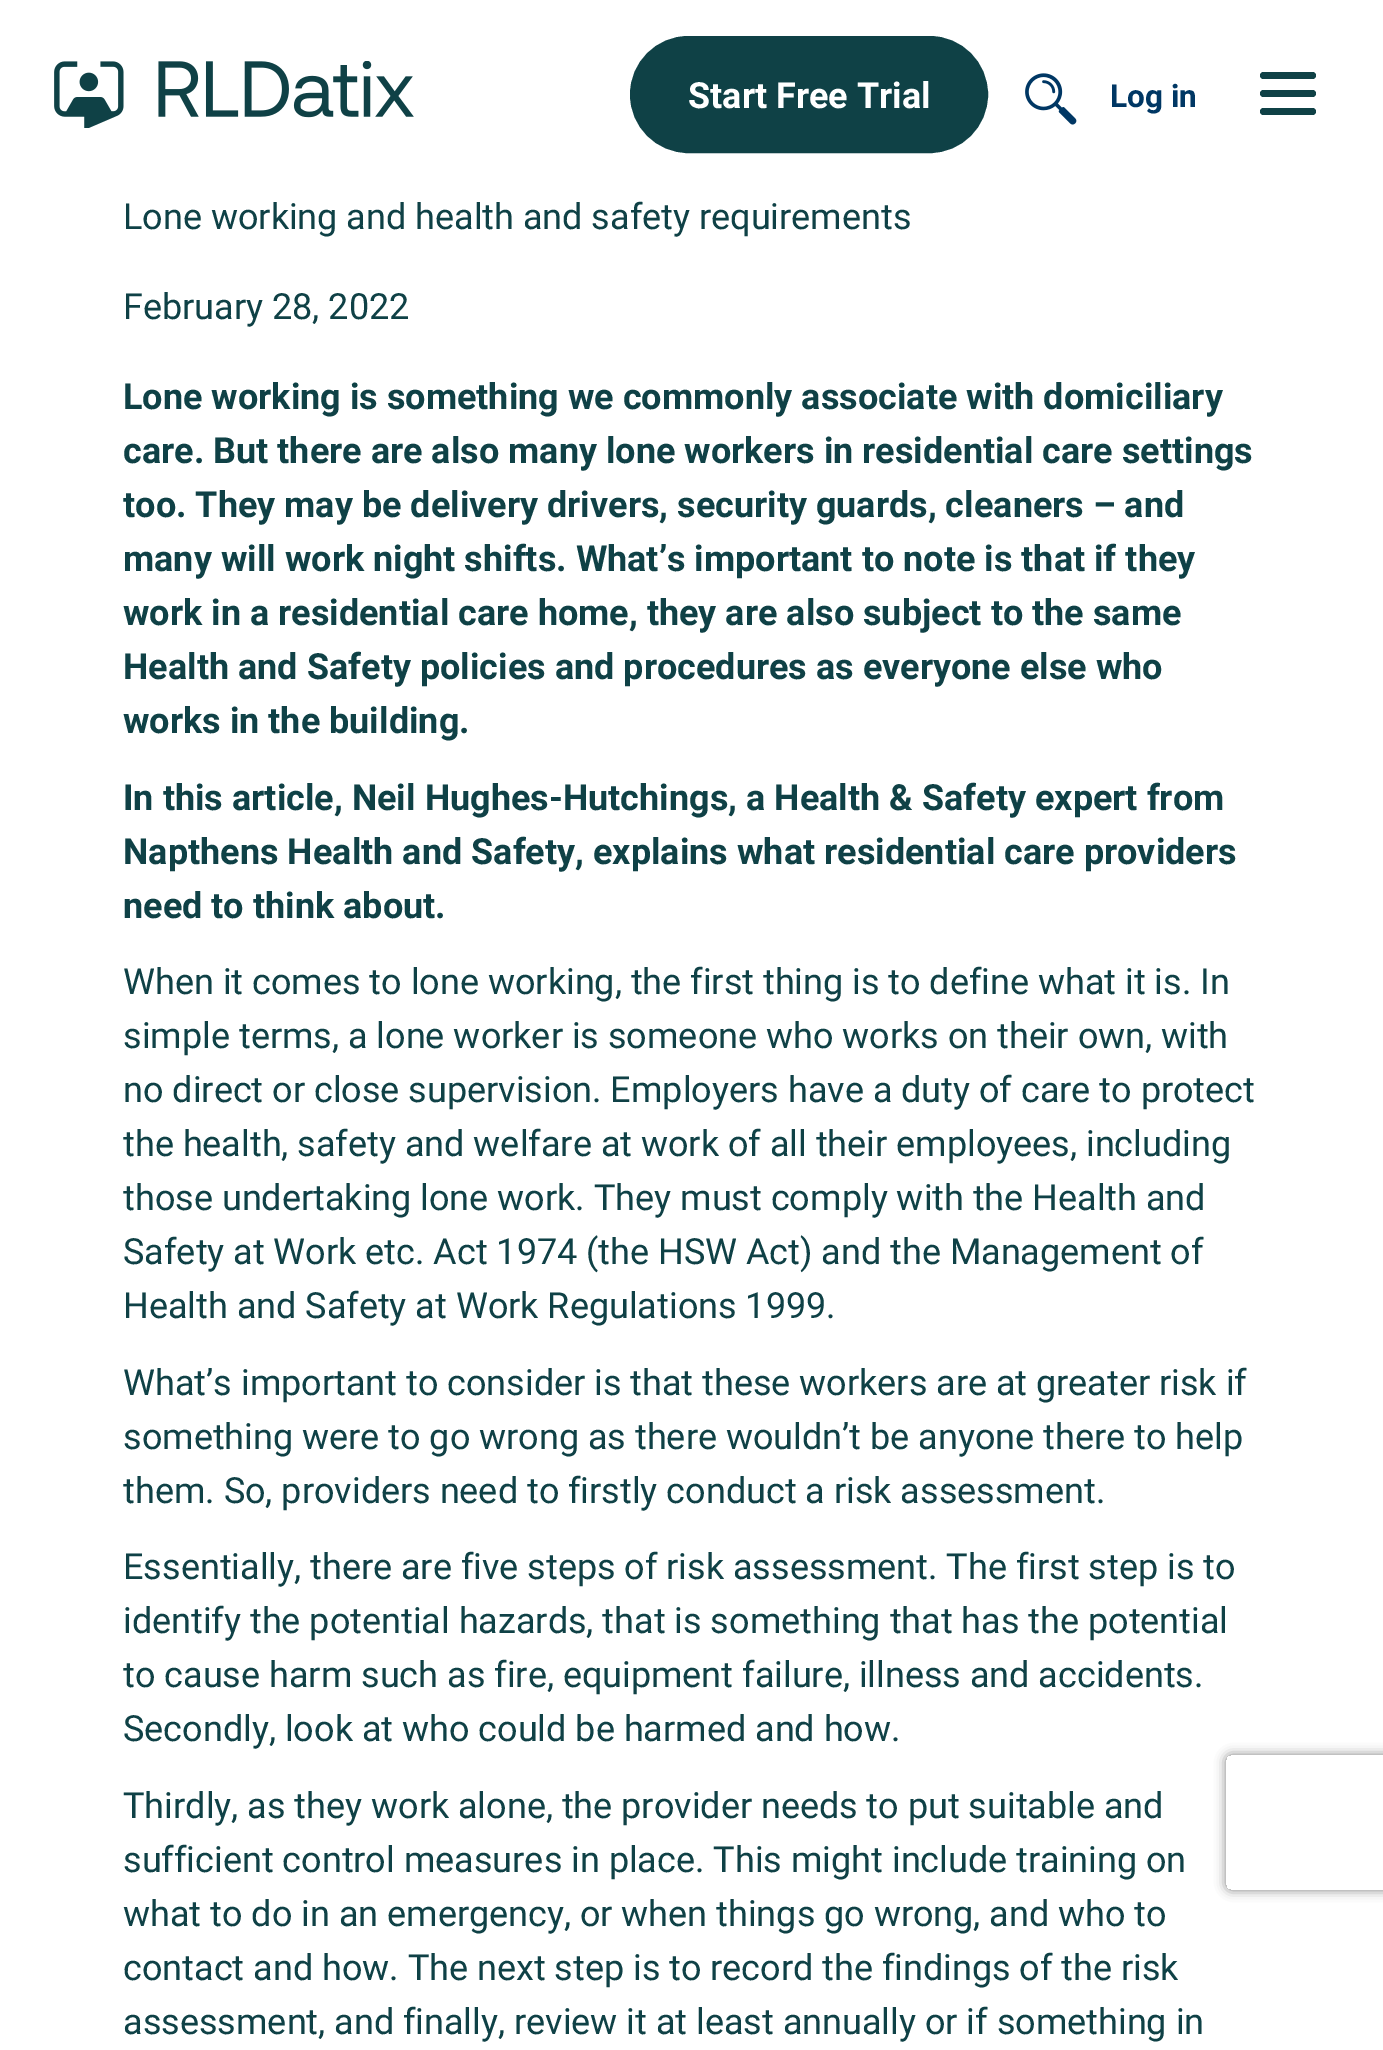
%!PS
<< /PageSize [1383 2050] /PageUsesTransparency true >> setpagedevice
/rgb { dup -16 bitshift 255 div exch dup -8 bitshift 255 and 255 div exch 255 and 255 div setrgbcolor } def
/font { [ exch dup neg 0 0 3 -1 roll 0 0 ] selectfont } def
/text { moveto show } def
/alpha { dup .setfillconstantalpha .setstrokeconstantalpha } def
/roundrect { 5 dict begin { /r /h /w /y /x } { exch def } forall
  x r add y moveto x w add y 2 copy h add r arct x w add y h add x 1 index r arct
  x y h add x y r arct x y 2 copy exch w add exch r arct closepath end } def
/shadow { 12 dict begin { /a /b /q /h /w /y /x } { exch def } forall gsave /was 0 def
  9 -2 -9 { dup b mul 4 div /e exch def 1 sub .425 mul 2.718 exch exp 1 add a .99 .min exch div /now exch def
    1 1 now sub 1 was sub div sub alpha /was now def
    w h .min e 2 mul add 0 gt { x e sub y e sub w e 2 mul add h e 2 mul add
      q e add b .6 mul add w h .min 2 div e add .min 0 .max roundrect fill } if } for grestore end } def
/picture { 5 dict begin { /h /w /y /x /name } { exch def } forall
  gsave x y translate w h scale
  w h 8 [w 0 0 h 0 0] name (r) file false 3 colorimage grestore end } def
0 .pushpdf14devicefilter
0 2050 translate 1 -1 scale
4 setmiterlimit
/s1 { /Roboto-Bold 36 font 16#FFFFFF rgb } def
/s2 { /Roboto-Bold 31.5 font 16#003764 rgb } def
/s3 { /Roboto-Regular 36 font 16#0F4146 rgb } def
/s4 { /Roboto-Bold 36 font 16#0F4146 rgb } def
16#FFFFFF rgb
0 0 1383 2050 rectfill
(pic1.raw) 54 61 360 67 picture
16#0F4146 rgb
632.5 38.5 353 112 56 roundrect gsave fill grestore
5 setlinewidth
stroke
s1
(Start Free Trial) 688 108 text
(pic2.raw) 1025 73 52 52 picture
s2
(Log in) 1110 107 text
16#0F4146 rgb
1260 90 56 7 3.5 roundrect fill
1260 72 56 7 3.5 roundrect fill
1260 108 56 7 3.5 roundrect fill
s3
(Lone working and health and safety requirements) 123 229 text
(February 28, 2022) 123 319 text
s4
(Lone working is something we commonly associate with domiciliary) 123 409 text
(care. But there are also many lone workers in residential care settings) 123 463 text
(too. They may be delivery drivers, security guards, cleaners – and) 123 517 text
(many will work night shifts. What’s important to note is that if they) 123 571 text
(work in a residential care home, they are also subject to the same) 123 625 text
(Health and Safety policies and procedures as everyone else who) 123 679 text
(works in the building.) 123 733 text
(In this article, Neil Hughes-Hutchings, a Health & Safety expert from) 123 810 text
(Napthens Health and Safety, explains what residential care providers) 123 864 text
(need to think about.) 123 918 text
s3
(When it comes to lone working, the first thing is to define what it is. In) 123 994 text
(simple terms, a lone worker is someone who works on their own, with) 123 1048 text
(no direct or close supervision. Employers have a duty of care to protect) 123 1102 text
(the health, safety and welfare at work of all their employees, including) 123 1156 text
(those undertaking lone work. They must comply with the Health and) 123 1210 text
(Safety at Work etc. Act 1974 \(the HSW Act\) and the Management of) 123 1264 text
(Health and Safety at Work Regulations 1999.) 123 1318 text
(What’s important to consider is that these workers are at greater risk if) 123 1395 text
(something were to go wrong as there wouldn’t be anyone there to help) 123 1449 text
(them. So, providers need to firstly conduct a risk assessment.) 123 1503 text
(Essentially, there are five steps of risk assessment. The first step is to) 123 1579 text
(identify the potential hazards, that is something that has the potential) 123 1633 text
(to cause harm such as fire, equipment failure, illness and accidents.) 123 1687 text
(Secondly, look at who could be harmed and how.) 123 1741 text
(Thirdly, as they work alone, the provider needs to put suitable and) 123 1818 text
(sufficient control measures in place. This might include training on) 123 1872 text
(what to do in an emergency, or when things go wrong, and who to) 123 1926 text
(contact and how. The next step is to record the findings of the risk) 123 1980 text
(assessment, and finally, review it at least annually or if something in) 123 2034 text
gsave
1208 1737 moveto 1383 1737 lineto 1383 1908 lineto 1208 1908 lineto closepath 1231 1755 moveto 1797 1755 lineto 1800 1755 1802 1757 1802 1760 curveto 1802 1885 lineto 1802 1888 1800 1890 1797 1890 curveto 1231 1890 lineto 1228 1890 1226 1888 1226 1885 curveto 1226 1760 lineto 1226 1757 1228 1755 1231 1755 curveto closepath eoclip newpath
16#808080 rgb
1226 1755 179 135 5 5.5 1 shadow
grestore
.poppdf14devicefilter showpage
